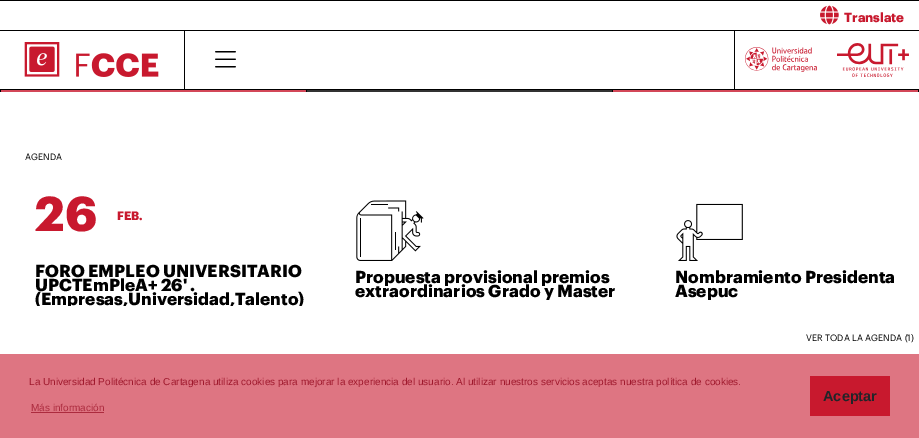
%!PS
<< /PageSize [919 438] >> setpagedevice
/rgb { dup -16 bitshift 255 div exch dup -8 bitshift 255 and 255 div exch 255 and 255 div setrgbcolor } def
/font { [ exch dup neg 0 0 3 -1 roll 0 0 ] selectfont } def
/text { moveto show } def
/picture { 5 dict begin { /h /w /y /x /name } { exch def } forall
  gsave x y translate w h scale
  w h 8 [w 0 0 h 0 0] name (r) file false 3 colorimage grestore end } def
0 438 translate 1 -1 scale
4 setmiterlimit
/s1 { /Graphik-Bold 13 font 16#C8192E rgb } def
/s2 { /Graphik-Regular 9 font 16#000000 rgb } def
/s3 { /Graphik-Bold 48 font 16#C8192E rgb } def
/s4 { /Graphik-Bold 12 font 16#C8192E rgb } def
/s5 { /Graphik-Bold 17 font 16#000000 rgb } def
/s6 { /LiberationSans-Regular 10 font 16#9F192D rgb } def
/s7 { /LiberationSans-Regular 10 font 16#AC2B3E rgb } def
/s8 { /LiberationSans-Bold 14.5 font 16#212529 rgb } def
16#FFFFFF rgb
0 0 919 438 rectfill
16#000000 rgb
0 0 919 1 rectfill
(pic1.raw) 820 5 19 20 picture
s1
(Translate) 844 22 text
16#000000 rgb
0 30 919 1 rectfill
0 89 919 1 rectfill
(pic2.raw) 24 42 135 35 picture
734 31 1 58 rectfill
184 31 1 58 rectfill
(pic3.raw) 215 51 21 17 picture
(pic4.raw) 745 47 72 25 picture
(pic5.raw) 837 43 72 34 picture
0 90 1 2 rectfill
16#D34758 rgb
1 90 305 2 rectfill
16#000000 rgb
306 90 1 2 rectfill
16#333333 rgb
307 90 305 2 rectfill
16#000000 rgb
918 90 1 2 rectfill
612 90 1 2 rectfill
16#D34758 rgb
613 90 305 2 rectfill
s2
(AGENDA) 25 160 text
s3
(26) 35 231 text
s4
(FEB.) 117 220 text
s5
(FORO EMPLEO UNIVERSITARIO) 35 277 text
(UPCTEmPleA+ 26' .) 35 291 text
gsave
15 186 889 120 rectclip
(\(Empresas,Universidad,Talento\)) 35 305 text
grestore
(pic6.raw) 356 200 68 61 picture
(Propuesta provisional premios) 355 283 text
(extraordinarios Grado y Master) 355 297 text
(pic7.raw) 676 203 67 58 picture
(Nombramiento Presidenta) 675 283 text
(Asepuc) 675 297 text
s2
(VER TODA LA AGENDA \(1\)) 806 341 text
16#DE7582 rgb
0 354 919 84 rectfill
s6
(La Universidad Politécnica de Cartagena utiliza cookies para mejorar la experiencia del usuario. Al utilizar nuestros servicios aceptas nuestra política de cookies.) 29 385 text
s7
(Más información) 31 411 text
31 412 73 1 rectfill
16#C8192E rgb
810 376 80 40 rectfill
s8
(Aceptar) 823 401 text
showpage
